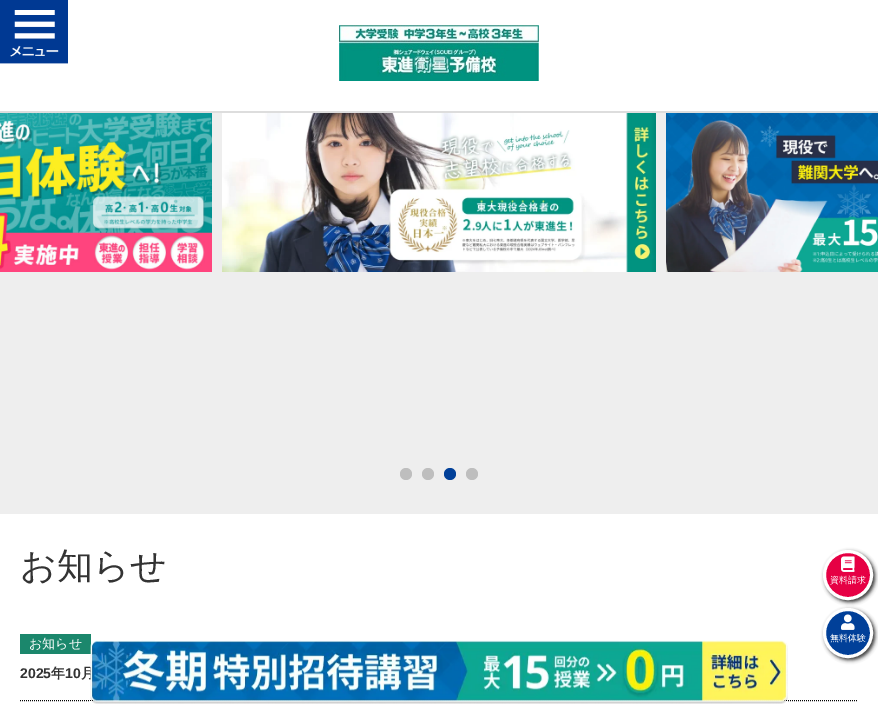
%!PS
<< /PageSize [878 710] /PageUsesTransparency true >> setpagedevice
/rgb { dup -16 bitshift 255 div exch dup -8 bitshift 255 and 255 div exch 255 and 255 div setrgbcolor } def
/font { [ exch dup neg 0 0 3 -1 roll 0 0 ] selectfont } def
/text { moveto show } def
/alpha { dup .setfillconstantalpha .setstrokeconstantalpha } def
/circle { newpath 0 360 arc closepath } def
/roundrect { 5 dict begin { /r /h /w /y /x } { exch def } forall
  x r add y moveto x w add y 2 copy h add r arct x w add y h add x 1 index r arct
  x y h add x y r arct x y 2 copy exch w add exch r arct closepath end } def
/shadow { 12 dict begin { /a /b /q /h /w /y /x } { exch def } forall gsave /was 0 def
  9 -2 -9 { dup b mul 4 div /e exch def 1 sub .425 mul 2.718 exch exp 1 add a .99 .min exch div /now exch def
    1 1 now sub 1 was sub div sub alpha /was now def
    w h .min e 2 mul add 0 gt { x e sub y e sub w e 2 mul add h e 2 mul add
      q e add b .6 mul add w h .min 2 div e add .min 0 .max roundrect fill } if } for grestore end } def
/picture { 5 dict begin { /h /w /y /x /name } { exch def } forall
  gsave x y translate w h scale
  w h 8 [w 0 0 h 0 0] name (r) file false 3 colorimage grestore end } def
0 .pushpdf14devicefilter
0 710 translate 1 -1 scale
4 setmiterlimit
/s1 { /WenQuanYiZenHei-Medium 36 font 16#333333 rgb } def
/s2 { /WenQuanYiZenHei-Medium 13 font 16#FFFFFF rgb } def
/s3 { /LiberationSans-Bold 14 font 16#333333 rgb } def
/s4 { /WenQuanYiZenHei-Bold 14 font 16#333333 rgb } def
/s5 { /WenQuanYiZenHei-Medium 9 font 16#FFFFFF rgb } def
16#FFFFFF rgb
0 0 878 710 rectfill
(pic1.raw) 0 0 68 64 picture
(pic2.raw) 339 25 200 56 picture
16#DDDDDD rgb
0 111 878 2 rectfill
16#EEEEEE rgb
0 113 878 401 rectfill
(pic3.raw) 0 113 212 159 picture
(pic4.raw) 222 113 434 159 picture
(pic5.raw) 666 113 212 159 picture
16#BEBEBE rgb
406 474 6 circle fill
428 474 6 circle fill
16#014099 rgb
450 474 6 circle fill
16#BEBEBE rgb
472 474 6 circle fill
s1
(お知らせ) 20 578 text
16#1B876C rgb
20 634 71 20 rectfill
s2
(お知らせ) 29 648 text
s3
(2025) 20 678 text
s4
(年) 51 678 text
s3
(10) 65 678 text
s4
(月) 81 678 text
16#000000 rgb
[1 1] 0 setdash
20 700.5 moveto 858 700.5 lineto stroke
16#333333 rgb
825 552 50 50 25 2 1 shadow
16#E60044 rgb
848 575 23.5 circle gsave fill grestore
16#FFFFFF rgb
3 setlinewidth
[] 0 setdash
stroke
(pic6.raw) 841 556 14 16 picture
s5
(資料請求) 830 583 text
16#333333 rgb
825 610 50 50 25 2 1 shadow
16#014099 rgb
848 633 23.5 circle gsave fill grestore
16#FFFFFF rgb
stroke
(pic7.raw) 841 614 14 16 picture
(無料体験) 830 641 text
(pic8.raw) 90 640 698 64 picture
.poppdf14devicefilter showpage
